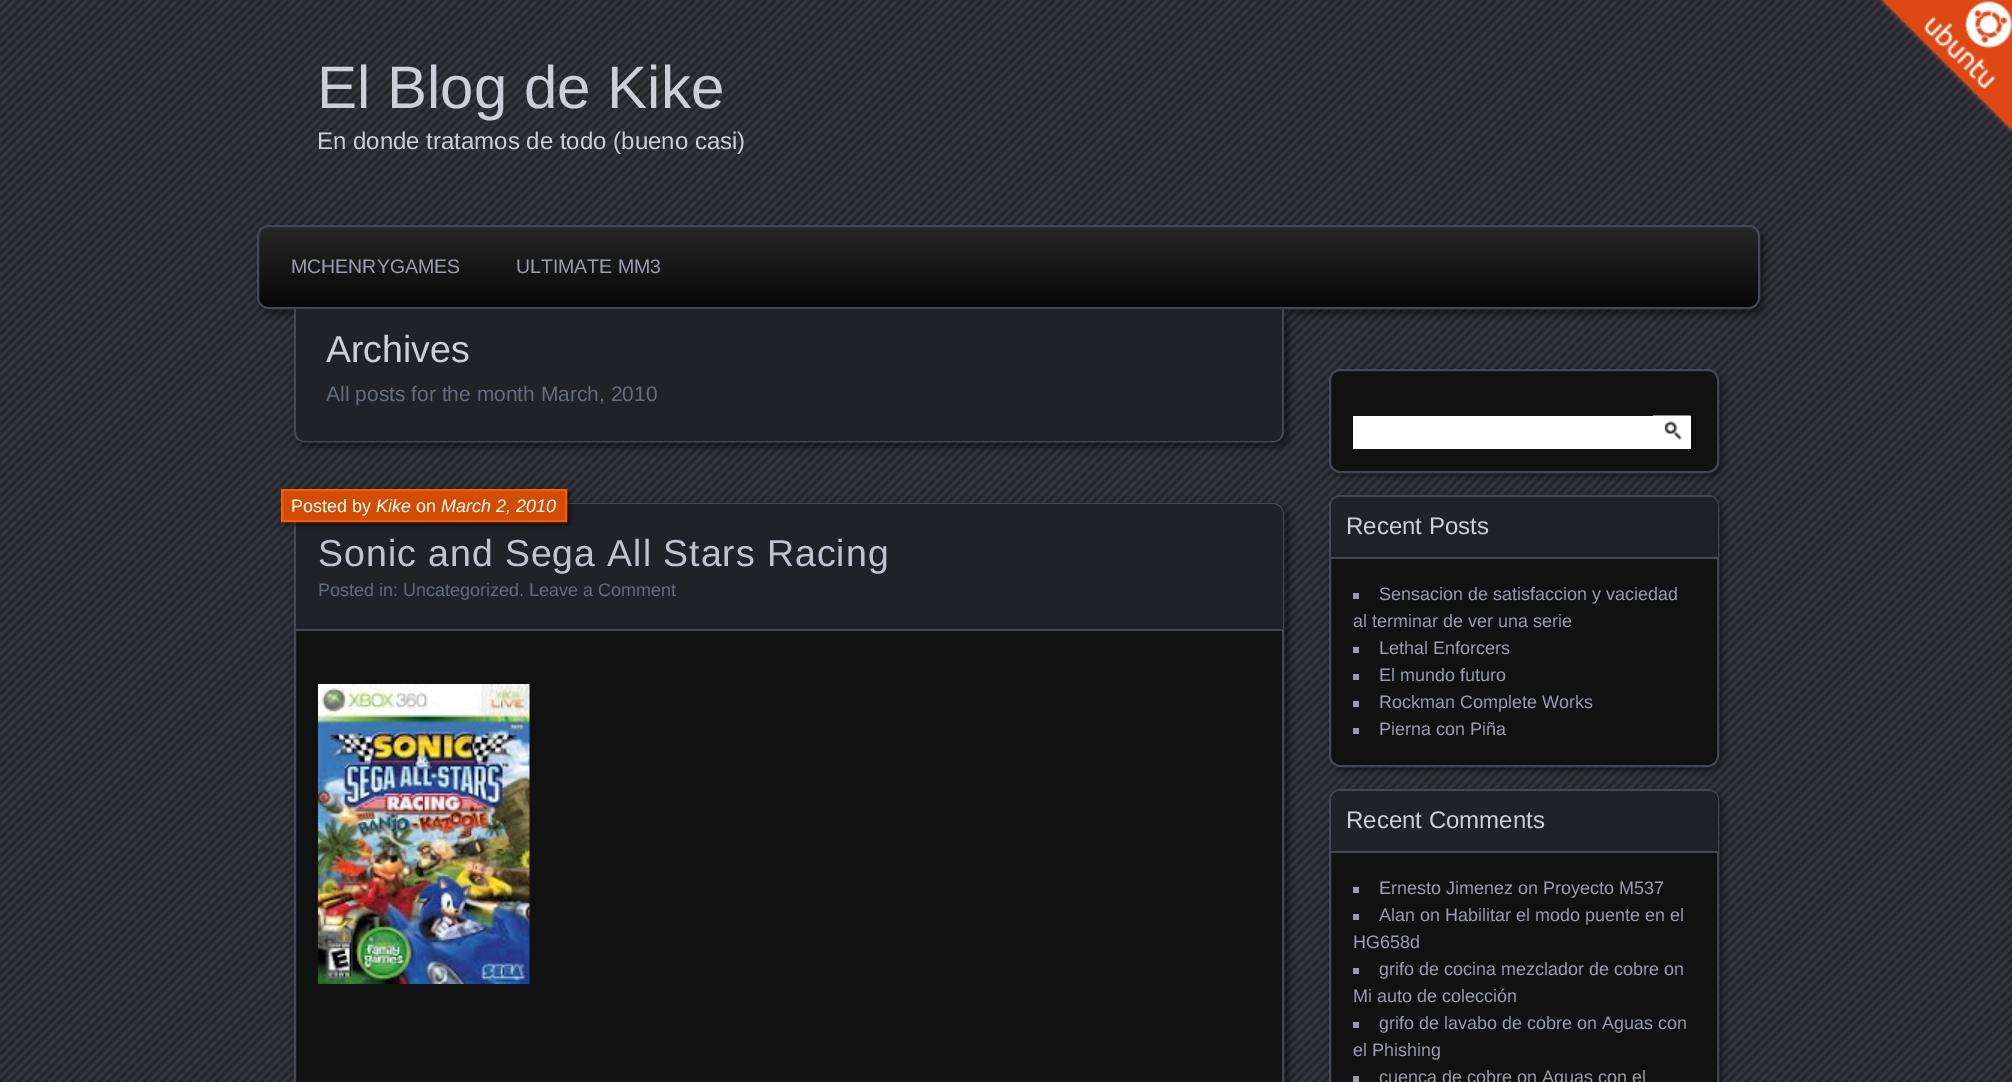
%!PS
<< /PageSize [2012 1082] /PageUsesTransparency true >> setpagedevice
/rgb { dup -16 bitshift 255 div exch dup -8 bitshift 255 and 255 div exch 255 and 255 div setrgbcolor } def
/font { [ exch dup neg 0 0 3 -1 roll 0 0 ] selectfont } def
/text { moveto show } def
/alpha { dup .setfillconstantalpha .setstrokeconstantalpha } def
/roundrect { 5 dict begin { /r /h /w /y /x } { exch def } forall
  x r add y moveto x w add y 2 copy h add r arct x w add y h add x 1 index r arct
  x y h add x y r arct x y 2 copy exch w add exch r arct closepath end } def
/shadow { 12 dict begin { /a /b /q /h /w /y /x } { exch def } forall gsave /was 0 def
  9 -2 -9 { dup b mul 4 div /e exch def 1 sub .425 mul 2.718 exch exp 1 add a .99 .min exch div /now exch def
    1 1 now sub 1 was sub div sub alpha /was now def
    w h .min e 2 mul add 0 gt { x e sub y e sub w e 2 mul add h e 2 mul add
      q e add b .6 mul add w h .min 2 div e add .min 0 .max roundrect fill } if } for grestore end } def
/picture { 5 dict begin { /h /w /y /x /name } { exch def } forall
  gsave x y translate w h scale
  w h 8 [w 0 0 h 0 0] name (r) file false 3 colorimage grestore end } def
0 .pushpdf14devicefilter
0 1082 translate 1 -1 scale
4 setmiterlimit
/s1 { /LiberationSans-Regular 60 font 16#CCCFD7 rgb } def
/s2 { /LiberationSans-Regular 24 font 16#CCCFD7 rgb } def
/s3 { /LiberationSans-Regular 19.5 font 16#989EAE rgb } def
/s4 { /LiberationSans-Regular 37.5 font 16#CCCFD7 rgb } def
/s5 { /LiberationSans-Regular 21 font 16#666C7F rgb } def
/s6 { /LiberationSans-Regular 18 font 16#FFFFFF rgb } def
/s7 { /LiberationSans-Italic 18 font 16#FFFFFF rgb } def
/s8 { /LiberationSans-Regular 18 font 16#666C7F rgb } def
/s9 { /LiberationSans-Regular 18 font 16#989EAE rgb } def
16#202228 rgb
0 0 2012 1082 rectfill
(pic1.raw) 0 0 2012 1082 picture
s1
(El Blog de Kike) 317 108 text
s2
(En donde tratamos de todo \(bueno casi\)) 317 149 text
16#000000 rgb
261 230 1503 84 11 3 0.45 shadow
gsave
257 225 1503 84 11 roundrect clip newpath
gsave 257 227 moveto 1760 227 lineto 1760 308 lineto 257 308 lineto closepath clip newpath
<< /ShadingType 2 /ColorSpace /DeviceRGB /Coords [1008 226 1008 308] /Extend [true true] /Function << /FunctionType 3 /Domain [0 1] /Functions [<< /FunctionType 2 /Domain [0 1] /C0 [0.153 0.153 0.153] /C1 [0.153 0.153 0.153] /N 1 >> << /FunctionType 2 /Domain [0 1] /C0 [0.153 0.153 0.153] /C1 [0.027 0.027 0.027] /N 1 >>] /Bounds [0.01] /Encode [0 1 0 1] >> >> shfill grestore
grestore
16#444855 rgb
2 setlinewidth
258 226 1501 82 10 roundrect stroke
s3
(MCHENRYGAMES) 291 273 text
(ULTIMATE MM3) 516 273 text
gsave
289 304 moveto 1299 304 lineto 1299 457 lineto 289 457 lineto closepath 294 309 moveto 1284 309 lineto 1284 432 lineto 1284 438 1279 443 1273 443 curveto 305 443 lineto 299 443 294 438 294 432 curveto closepath eoclip newpath
16#000000 rgb
299 314 990 133 11 3 0.45 shadow
grestore
16#202228 rgb
296 309 moveto 1283 309 lineto 1283 432 lineto 1283 437 1279 441 1274 441 curveto 305 441 lineto 300 441 296 437 296 432 curveto closepath fill
16#444855 rgb
294 309 moveto 1284 309 lineto 1284 432 lineto 1284 438 1279 442 1274 442 curveto 304 442 lineto 299 442 294 438 294 432 curveto closepath 296 309 moveto 1282 309 lineto 1282 432 lineto 1282 437 1278 441 1274 441 curveto 304 441 lineto 300 441 296 437 296 432 curveto closepath eofill
s4
(Archives) 326 362 text
s5
(All posts for the month March, 2010) 326 401 text
16#000000 rgb
299 507 990 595 11 3 0.45 shadow
16#111111 rgb
295 504 988 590 10 roundrect gsave fill grestore
16#444855 rgb
stroke
16#202228 rgb
307 504 moveto 1272 504 lineto 1278 504 1283 509 1283 515 curveto 1283 630 lineto 296 630 lineto 296 515 lineto 296 509 301 504 307 504 curveto closepath fill
16#444855 rgb
296 629 987 2 rectfill
16#000000 rgb
284 492 286 33 0 2.5 0.45 shadow
16#D24D04 rgb
282 490 moveto 566 490 lineto 566 521 lineto 282 521 lineto closepath gsave fill grestore
16#FF5A00 rgb
stroke
s6
(Posted by) 291 512 text
s7
(Kike) 376 512 text
s6
(on) 416 512 text
s7
(March 2, 2010) 441 512 text
/LiberationSans-Regular 37.5 font
16#BFC3CF rgb
318 566 moveto 0.95 0 (Sonic and Sega All Stars Racing) ashow
s8
(Posted in: Uncategorized. Leave a Comment) 318 596 text
(pic2.raw) 318 684 212 300 picture
16#000000 rgb
1332 372 390 104 11 2.5 0.45 shadow
16#111111 rgb
1330 370 388 102 10 roundrect gsave fill grestore
16#444855 rgb
stroke
16#FFFFFF rgb
1353 416 338 33 rectfill
(pic3.raw) 1653 415 38 25 picture
16#000000 rgb
1332 498 390 272 11 2.5 0.45 shadow
16#111111 rgb
1330 496 388 270 10 roundrect gsave fill grestore
16#444855 rgb
stroke
16#202228 rgb
1340 497 moveto 1709 497 lineto 1714 497 1718 501 1718 506 curveto 1718 558 lineto 1331 558 lineto 1331 506 lineto 1331 501 1335 497 1340 497 curveto closepath fill
16#444855 rgb
1331 557 387 2 rectfill
s2
(Recent Posts) 1346 534 text
16#989EAE rgb
1353 593 6 6 rectfill
s9
(Sensacion de satisfaccion y vaciedad) 1379 600 text
(al terminar de ver una serie) 1353 627 text
1353 647 6 6 rectfill
(Lethal Enforcers) 1379 654 text
1353 674 6 6 rectfill
(El mundo futuro) 1379 681 text
1353 701 6 6 rectfill
(Rockman Complete Works) 1379 708 text
1353 728 6 6 rectfill
(Pierna con Piña) 1379 735 text
16#000000 rgb
1332 792 390 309 11 2.5 0.45 shadow
16#111111 rgb
1330 790 388 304 10 roundrect gsave fill grestore
16#444855 rgb
stroke
16#202228 rgb
1340 791 moveto 1709 791 lineto 1714 791 1718 795 1718 800 curveto 1718 852 lineto 1331 852 lineto 1331 800 lineto 1331 795 1335 791 1340 791 curveto closepath fill
16#444855 rgb
1331 851 387 2 rectfill
s2
(Recent Comments) 1346 828 text
16#989EAE rgb
1353 887 6 6 rectfill
s9
(Ernesto Jimenez on Proyecto M537) 1379 894 text
1353 914 6 6 rectfill
(Alan on Habilitar el modo puente en el) 1379 921 text
(HG658d) 1353 948 text
1353 968 6 6 rectfill
(grifo de cocina mezclador de cobre on) 1379 975 text
(Mi auto de colección) 1353 1002 text
1353 1022 6 6 rectfill
(grifo de lavabo de cobre on Aguas con) 1379 1029 text
(el Phishing) 1353 1056 text
1353 1076 6 6 rectfill
(cuenca de cobre on Aguas con el) 1379 1083 text
(pic4.raw) 1879 0 133 134 picture
.poppdf14devicefilter showpage
